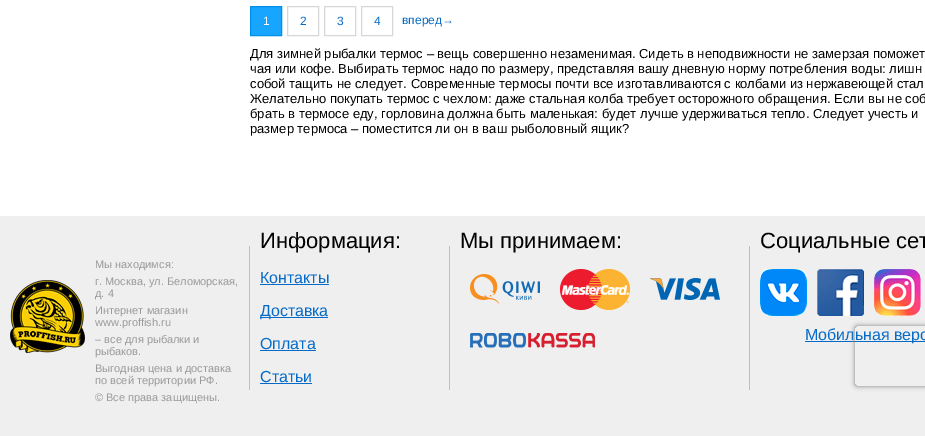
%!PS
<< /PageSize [925 436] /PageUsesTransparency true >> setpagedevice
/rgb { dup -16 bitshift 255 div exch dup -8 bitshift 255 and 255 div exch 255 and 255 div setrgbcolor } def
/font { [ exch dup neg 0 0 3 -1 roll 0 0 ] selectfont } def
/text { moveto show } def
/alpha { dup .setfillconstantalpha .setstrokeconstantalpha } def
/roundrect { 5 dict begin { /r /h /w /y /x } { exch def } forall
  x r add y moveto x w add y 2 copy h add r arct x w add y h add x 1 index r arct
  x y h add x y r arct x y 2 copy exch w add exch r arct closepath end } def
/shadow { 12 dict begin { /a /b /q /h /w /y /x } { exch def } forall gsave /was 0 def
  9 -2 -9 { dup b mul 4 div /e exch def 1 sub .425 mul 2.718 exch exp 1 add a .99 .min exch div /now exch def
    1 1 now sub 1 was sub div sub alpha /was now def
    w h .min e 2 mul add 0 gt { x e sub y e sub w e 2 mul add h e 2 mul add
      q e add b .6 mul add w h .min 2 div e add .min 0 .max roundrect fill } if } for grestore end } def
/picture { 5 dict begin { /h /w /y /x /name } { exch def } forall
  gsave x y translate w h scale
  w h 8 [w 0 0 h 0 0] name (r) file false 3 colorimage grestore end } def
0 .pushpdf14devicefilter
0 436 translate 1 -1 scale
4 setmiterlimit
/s1 { /LiberationSans-Regular 12 font 16#FFFFFF rgb } def
/s2 { /LiberationSans-Regular 12 font 16#066BC7 rgb } def
/s3 { /LiberationSans-Regular 13 font 16#000000 rgb } def
/s4 { /LiberationSans-Regular 11 font 16#999999 rgb } def
/s5 { /LiberationSans-Regular 22 font 16#000000 rgb } def
/s6 { /LiberationSans-Regular 16 font 16#066BC7 rgb } def
16#FFFFFF rgb
0 0 925 436 rectfill
16#18A5FF rgb
250.5 6.5 moveto 281.5 6.5 lineto 281.5 35.5 lineto 250.5 35.5 lineto closepath gsave fill grestore
16#008FE9 rgb
stroke
s1
(1) 263 25 text
16#D7D7D7 rgb
287.5 6.5 31 29 rectstroke
s2
(2) 300 25 text
16#D7D7D7 rgb
324.5 6.5 31 29 rectstroke
s2
(3) 337 25 text
16#D7D7D7 rgb
361.5 6.5 31 29 rectstroke
s2
(4) 374 25 text
(вперед→) 402 24 text
s3
(Для зимней рыбалки термос – вещь совершенно незаменимая. Сидеть в неподвижности не замерзая поможет) 250 58 text
(чая или кофе. Выбирать термос надо по размеру, представляя вашу дневную норму потребления воды: лишн) 250 73 text
(собой тащить не следует. Современные термосы почти все изготавливаются с колбами из нержавеющей стал) 250 88 text
(Желательно покупать термос с чехлом: даже стальная колба требует осторожного обращения. Если вы не соб) 250 103 text
(брать в термосе еду, горловина должна быть маленькая: будет лучше удерживаться тепло. Следует учесть и) 250 118 text
(размер термоса – поместится ли он в ваш рыболовный ящик?) 250 133 text
16#EFEFEF rgb
0 216 925 220 rectfill
(pic1.raw) 10 280 75 73 picture
s4
(Мы находимся:) 95 268 text
(г. Москва, ул. Беломорская,) 95 285 text
(д. 4) 95 297 text
(Интернет магазин) 95 314 text
(www.proffish.ru) 95 326 text
(– все для рыбалки и) 95 343 text
(рыбаков.) 95 355 text
(Выгодная цена и доставка) 95 372 text
(по всей территории РФ.) 95 384 text
(© Все права защищены.) 95 401 text
16#BFBFBF rgb
249 246 1 144 rectfill
s5
(Информация:) 260 248 text
s6
(Контакты) 260 283 text
260 284 69 1 rectfill
260 317 68 1 rectfill
(Доставка) 260 316 text
(Оплата) 260 349 text
260 350 56 1 rectfill
(Статьи) 260 382 text
260 383 52 1 rectfill
16#BFBFBF rgb
449 246 1 144 rectfill
s5
(Мы принимаем:) 460 248 text
(pic2.raw) 470 274 70 30 picture
(pic3.raw) 560 269 70 41 picture
(pic4.raw) 650 278 70 22 picture
(pic5.raw) 470 333 125 15 picture
16#BFBFBF rgb
749 246 1 144 rectfill
s5
(Социальные сет) 760 248 text
(pic6.raw) 760 269 47 47 picture
(pic7.raw) 817 269 47 47 picture
(pic8.raw) 874 269 47 47 picture
16#066BC7 rgb
805 341 120 1 rectfill
s6
(Мобильная верс) 805 340 text
gsave
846 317 moveto 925 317 lineto 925 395 lineto 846 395 lineto closepath 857 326 moveto 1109 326 lineto 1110 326 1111 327 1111 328 curveto 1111 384 lineto 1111 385 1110 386 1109 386 curveto 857 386 lineto 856 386 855 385 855 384 curveto 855 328 lineto 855 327 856 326 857 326 curveto closepath eoclip newpath
16#808080 rgb
855 326 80 60 2 2.5 1 shadow
grestore
.poppdf14devicefilter showpage
